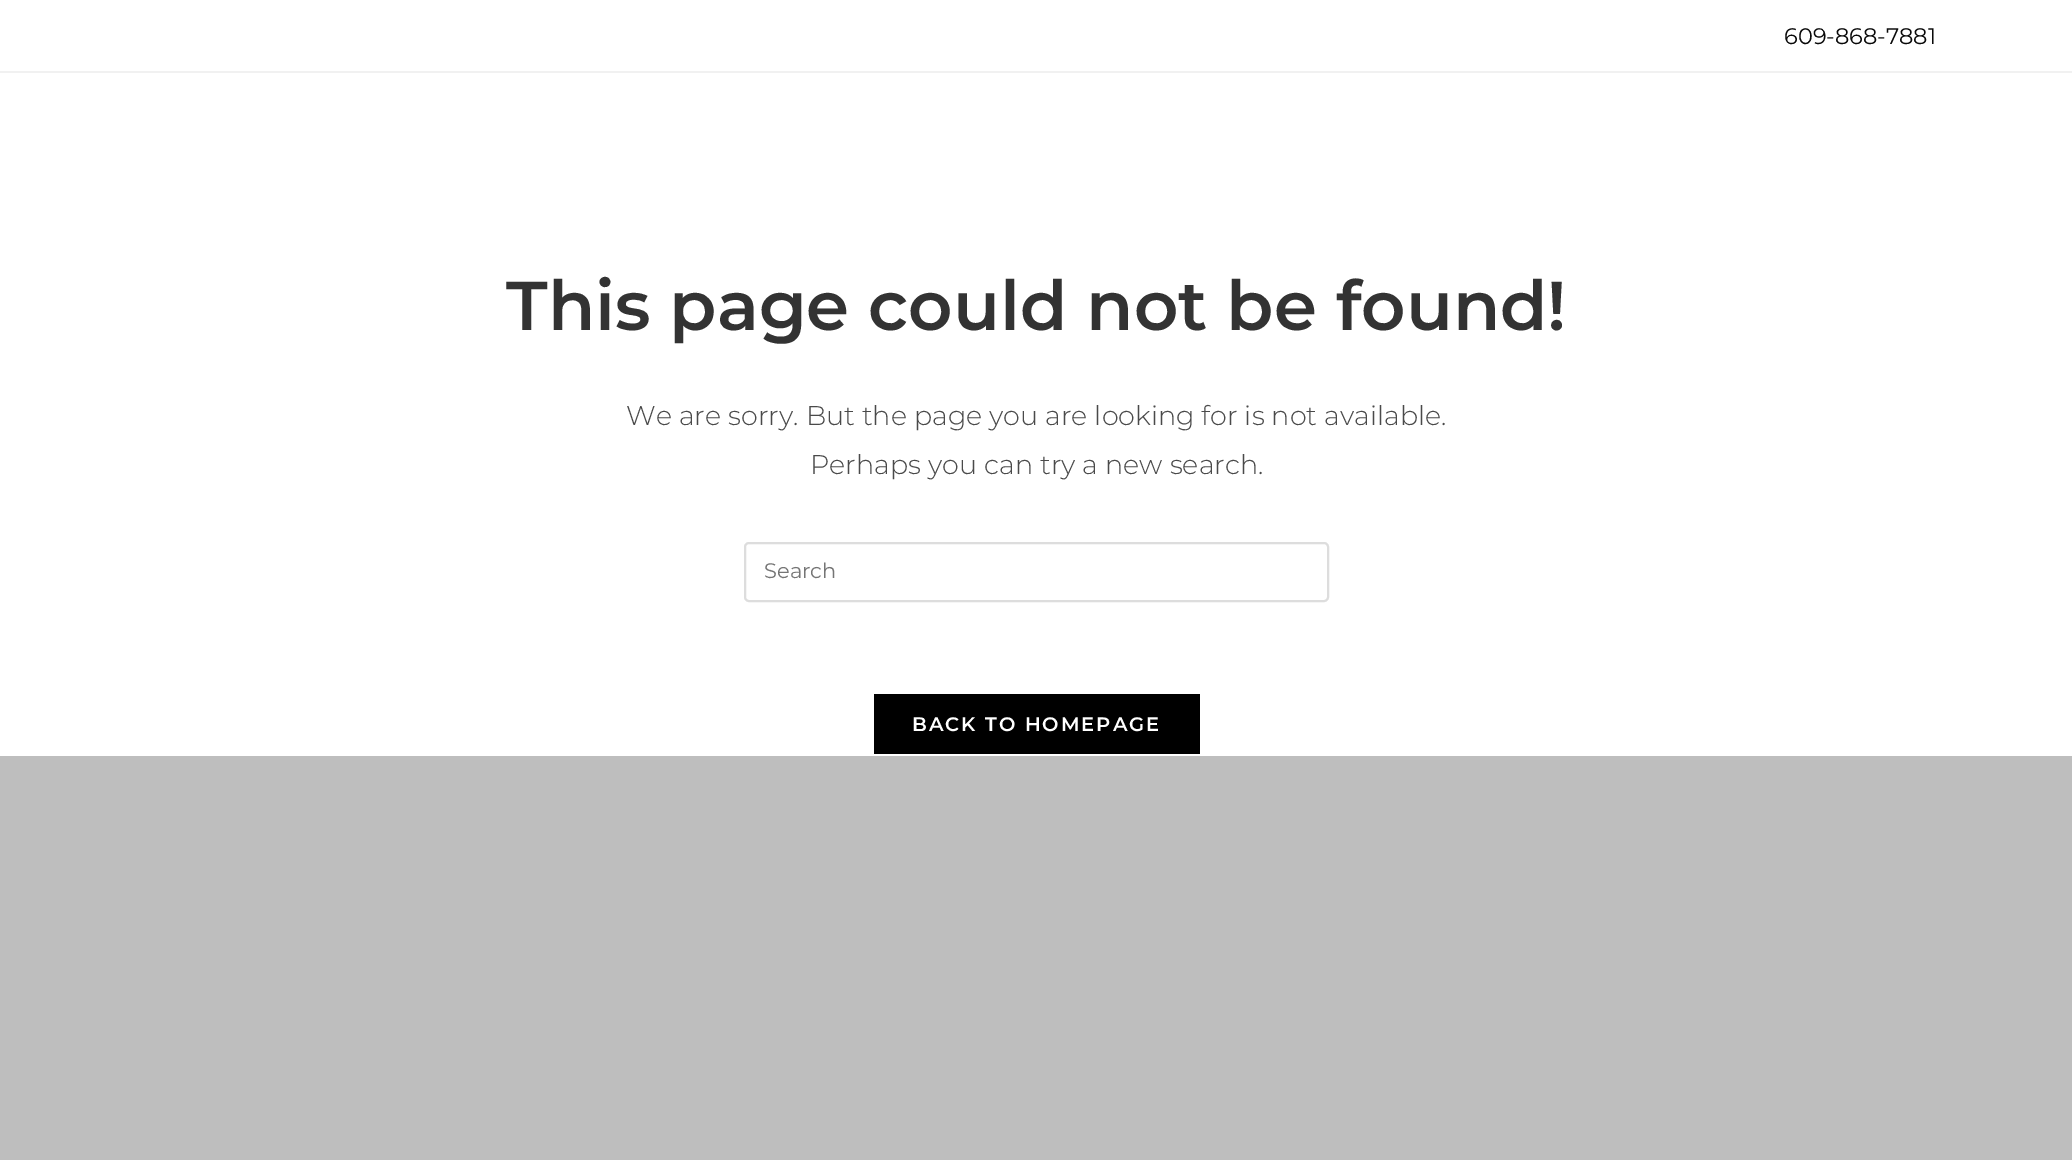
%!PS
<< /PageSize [2072 1160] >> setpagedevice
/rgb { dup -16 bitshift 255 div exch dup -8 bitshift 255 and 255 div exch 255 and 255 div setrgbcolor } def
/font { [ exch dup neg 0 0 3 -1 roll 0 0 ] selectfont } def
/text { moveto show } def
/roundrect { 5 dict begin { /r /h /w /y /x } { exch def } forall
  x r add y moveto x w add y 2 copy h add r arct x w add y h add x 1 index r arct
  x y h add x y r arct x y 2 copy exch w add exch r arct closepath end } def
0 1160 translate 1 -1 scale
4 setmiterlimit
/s1 { /Montserrat-Regular 22.5 font 16#0A0A0A rgb } def
/s2 { /Montserrat-SemiBold 69 font 16#333333 rgb } def
/s3 { /Montserrat-Light 27 font 16#4A4A4A rgb } def
/s4 { /Montserrat-Regular 21 font 16#757575 rgb } def
16#FFFFFF rgb
0 0 2072 1160 rectfill
16#F1F1F1 rgb
0 71 2072 2 rectfill
s1
(609-868-7881) 1784 44 text
s2
(This page could not be found!) 506 330 text
s3
(We are sorry. But the page you are looking for is not available.) 626 425 text
(Perhaps you can try a new search.) 810 474 text
16#DDDDDD rgb
2 setlinewidth
745 543 583 58 4 roundrect stroke
s4
(Search) 764 578 text
16#000000 rgb
874 694 326 60 rectfill
/Montserrat-SemiBold 19.5 font
16#FFFFFF rgb
912 731 moveto 2 0 (BACK TO HOMEPAGE) ashow
16#BEBEBE rgb
0 756 2072 404 rectfill
showpage
